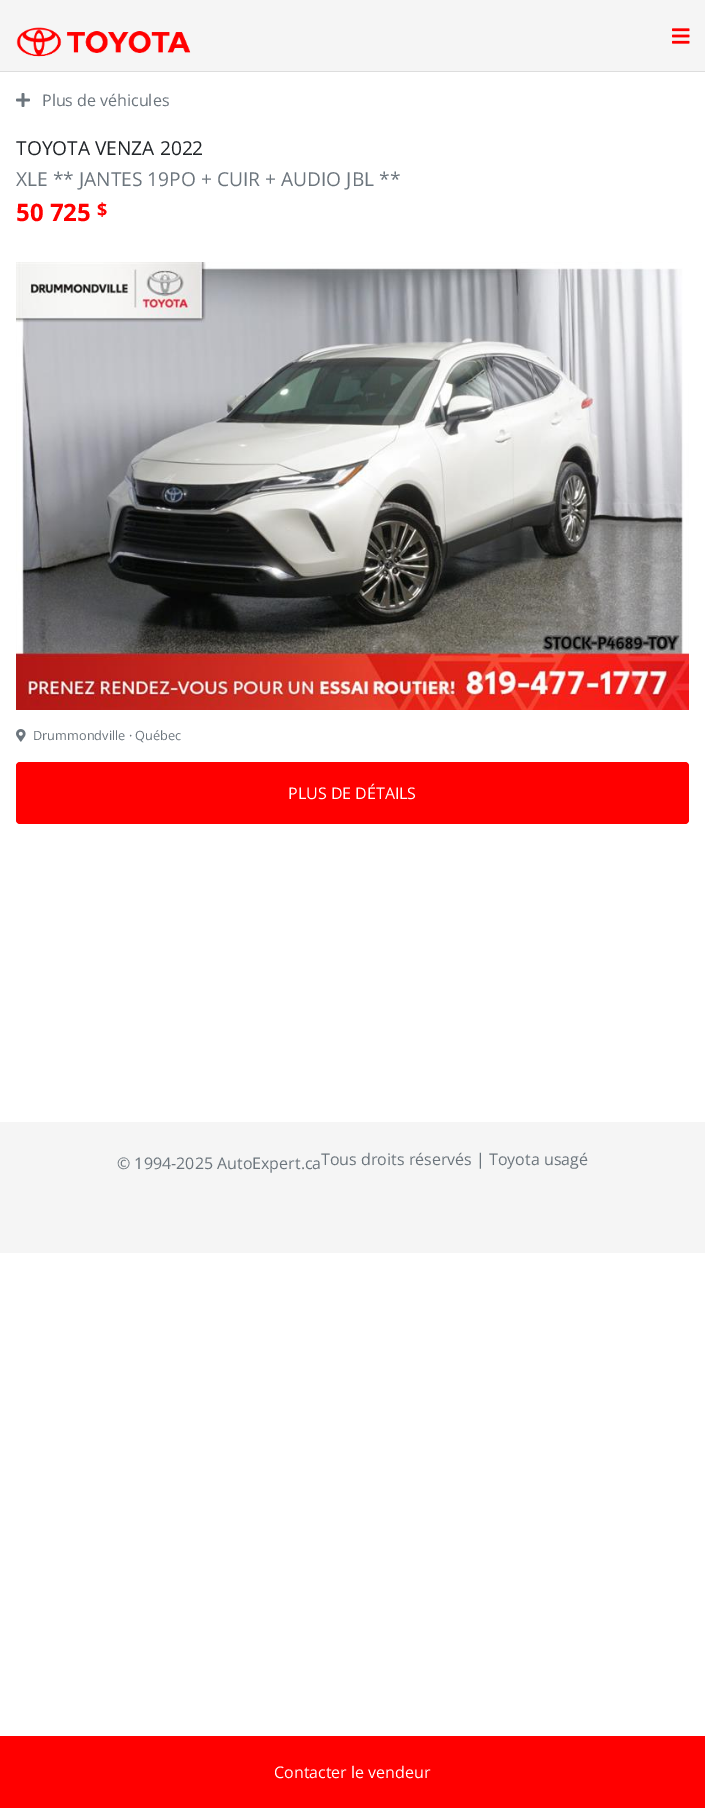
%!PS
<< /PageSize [705 1808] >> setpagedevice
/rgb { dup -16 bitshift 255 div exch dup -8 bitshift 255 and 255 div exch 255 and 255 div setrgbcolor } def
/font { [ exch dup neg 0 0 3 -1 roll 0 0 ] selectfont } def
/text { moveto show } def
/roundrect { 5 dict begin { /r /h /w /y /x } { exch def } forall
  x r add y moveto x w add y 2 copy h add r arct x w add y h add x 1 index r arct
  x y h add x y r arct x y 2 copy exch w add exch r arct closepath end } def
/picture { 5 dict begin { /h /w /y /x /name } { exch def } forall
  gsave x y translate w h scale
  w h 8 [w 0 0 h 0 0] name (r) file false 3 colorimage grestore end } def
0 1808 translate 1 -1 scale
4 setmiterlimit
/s1 { /OpenSans-Regular 16 font 16#6C757D rgb } def
/s2 { /OpenSans-Regular 19.2 font 16#212529 rgb } def
/s3 { /OpenSans-Regular 19.2 font 16#6C757D rgb } def
/s4 { /OpenSans-Bold 24 font 16#FF0000 rgb } def
/s5 { /OpenSans-Bold 18 font 16#FF0000 rgb } def
/s6 { /OpenSans-Regular 12.75 font 16#6C757D rgb } def
/s7 { /OpenSans-Regular 16 font 16#FFFFFF rgb } def
16#FFFFFF rgb
0 0 705 1808 rectfill
16#F5F5F5 rgb
0 0 705 71 rectfill
16#DDDDDD rgb
0 71 705 1 rectfill
(pic1.raw) 16 27 175 30 picture
(pic2.raw) 672 28 18 16 picture
(pic3.raw) 16 93 14 14 picture
s1
(Plus de véhicules) 42 106 text
s2
(TOYOTA VENZA 2022) 16 155 text
s3
(XLE ** JANTES 19PO + CUIR + AUDIO JBL **) 16 186 text
s4
(50 725) 16 221 text
s5
($) 97 216 text
(pic4.raw) 16 262 673 448 picture
(pic5.raw) 16 729 10 13 picture
s6
(Drummondville · Québec) 33 740 text
16#FF0000 rgb
16 762 673 62 4 roundrect fill
s7
(PLUS DE DÉTAILS) 288 799 text
16#F5F5F5 rgb
0 1122 705 131 rectfill
s1
(© 1994-2025 AutoExpert.ca) 117 1169 text
(Tous droits réservés | Toyota usagé) 321 1165 text
16#FF0000 rgb
0 1736 705 72 rectfill
s7
(Contacter le vendeur) 274 1778 text
showpage
